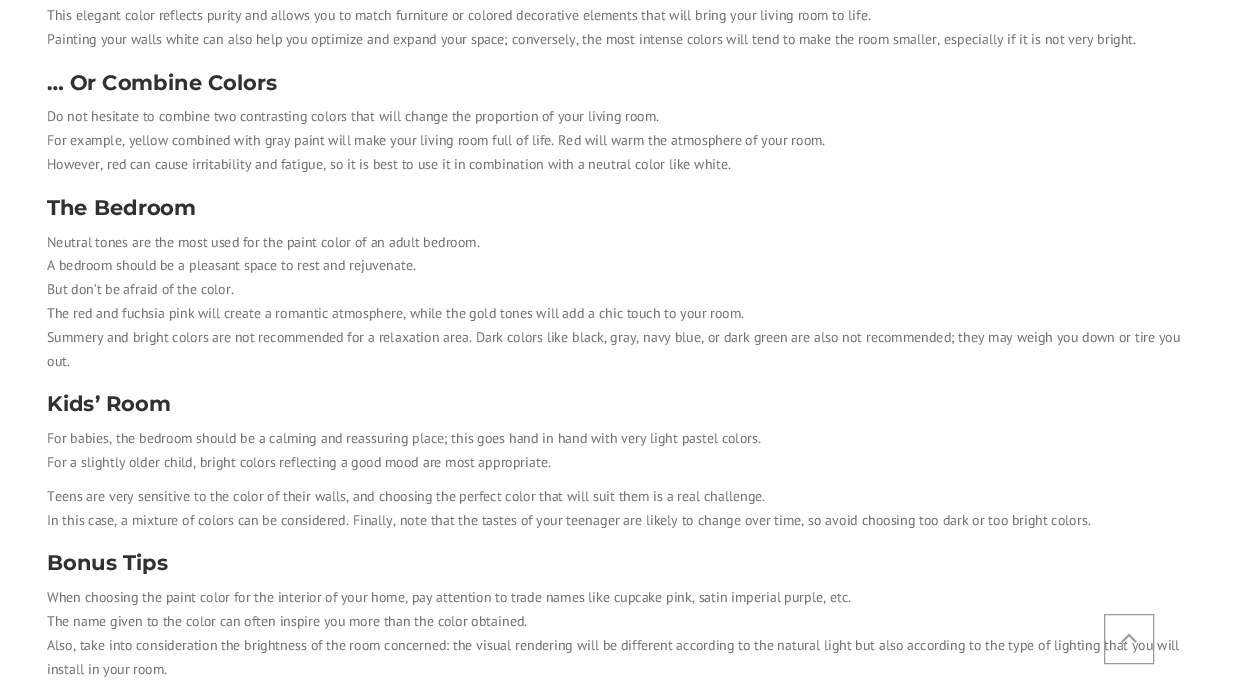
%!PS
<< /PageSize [1234 684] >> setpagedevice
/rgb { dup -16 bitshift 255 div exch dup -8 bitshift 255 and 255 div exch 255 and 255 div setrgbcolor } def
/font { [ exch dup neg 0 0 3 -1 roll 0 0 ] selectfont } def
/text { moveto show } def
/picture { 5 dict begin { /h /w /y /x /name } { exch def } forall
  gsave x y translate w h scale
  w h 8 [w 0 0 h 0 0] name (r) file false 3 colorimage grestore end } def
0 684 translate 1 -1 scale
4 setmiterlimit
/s1 { /PTSans-Regular 14 font 16#727272 rgb } def
/s2 { /Montserrat-Bold 21 font 16#313131 rgb } def
16#FFFFFF rgb
0 0 1234 684 rectfill
s1
(This elegant color reflects purity and allows you to match furniture or colored decorative elements that will bring your living room to life.) 47 20 text
(Painting your walls white can also help you optimize and expand your space; conversely, the most intense colors will tend to make the room smaller, especially if it is not very bright.) 47 44 text
s2
(… Or Combine Colors) 47 90 text
s1
(Do not hesitate to combine two contrasting colors that will change the proportion of your living room.) 47 121 text
(For example, yellow combined with gray paint will make your living room full of life. Red will warm the atmosphere of your room.) 47 145 text
(However, red can cause irritability and fatigue, so it is best to use it in combination with a neutral color like white.) 47 169 text
s2
(The Bedroom) 47 215 text
s1
(Neutral tones are the most used for the paint color of an adult bedroom.) 47 247 text
(A bedroom should be a pleasant space to rest and rejuvenate.) 47 270 text
(But don’t be afraid of the color.) 47 294 text
(The red and fuchsia pink will create a romantic atmosphere, while the gold tones will add a chic touch to your room.) 47 318 text
(Summery and bright colors are not recommended for a relaxation area. Dark colors like black, gray, navy blue, or dark green are also not recommended; they may weigh you down or tire you) 47 342 text
(out.) 47 366 text
s2
(Kids’ Room) 47 411 text
s1
(For babies, the bedroom should be a calming and reassuring place; this goes hand in hand with very light pastel colors.) 47 443 text
(For a slightly older child, bright colors reflecting a good mood are most appropriate.) 47 467 text
(Teens are very sensitive to the color of their walls, and choosing the perfect color that will suit them is a real challenge.) 47 501 text
(In this case, a mixture of colors can be considered. Finally, note that the tastes of your teenager are likely to change over time, so avoid choosing too dark or too bright colors.) 47 525 text
s2
(Bonus Tips) 47 570 text
s1
(When choosing the paint color for the interior of your home, pay attention to trade names like cupcake pink, satin imperial purple, etc.) 47 602 text
(The name given to the color can often inspire you more than the color obtained.) 47 626 text
(Also, take into consideration the brightness of the room concerned: the visual rendering will be different according to the natural light but also according to the type of lighting that you will) 47 650 text
(install in your room.) 47 674 text
16#999999 rgb
1104.5 614.5 49 49 rectstroke
(pic1.raw) 1121 633 16 10 picture
showpage
